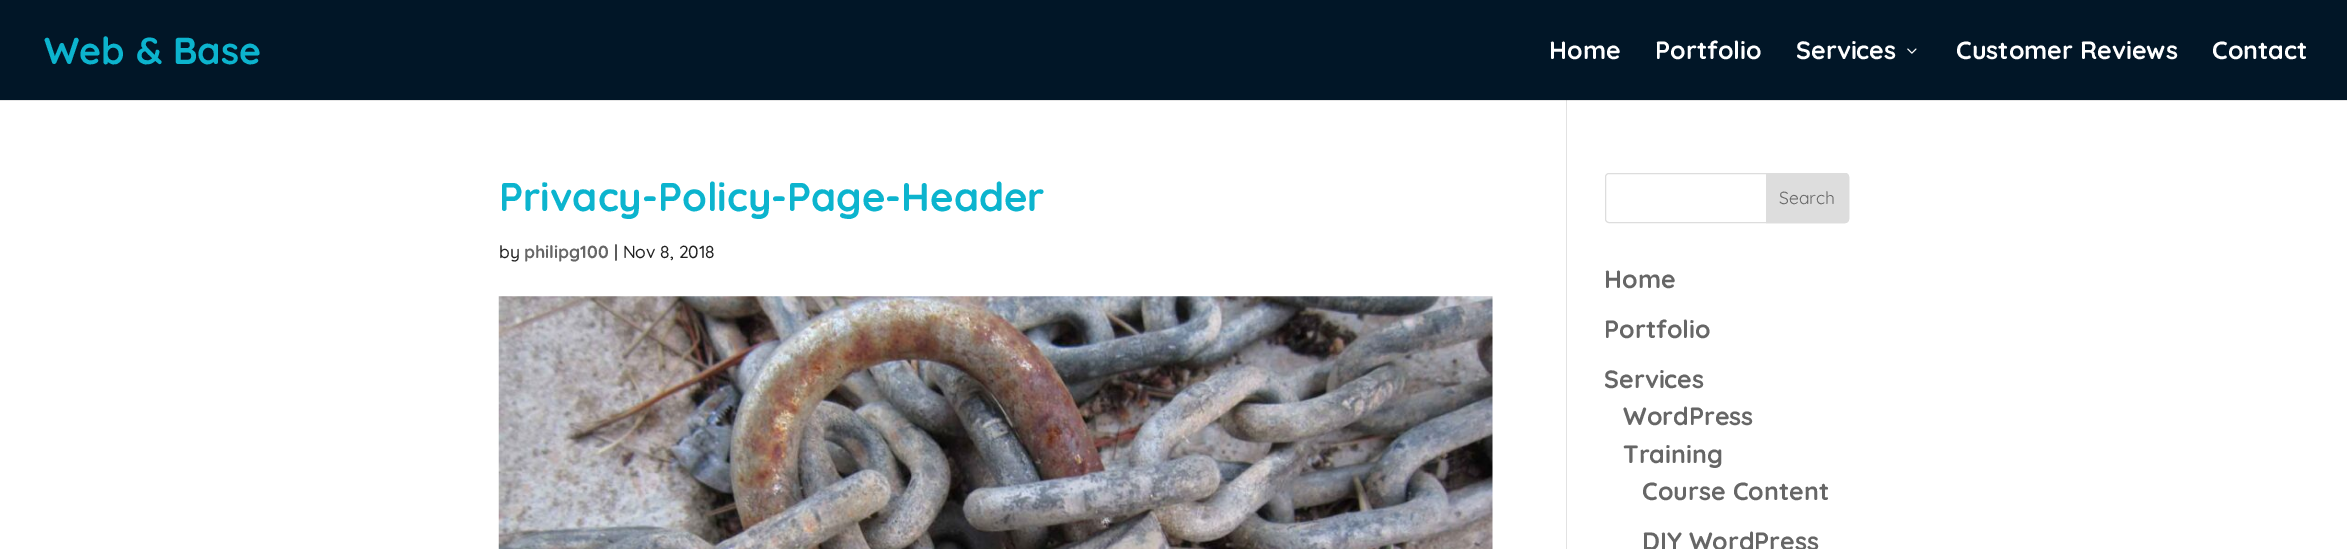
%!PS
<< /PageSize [2347 549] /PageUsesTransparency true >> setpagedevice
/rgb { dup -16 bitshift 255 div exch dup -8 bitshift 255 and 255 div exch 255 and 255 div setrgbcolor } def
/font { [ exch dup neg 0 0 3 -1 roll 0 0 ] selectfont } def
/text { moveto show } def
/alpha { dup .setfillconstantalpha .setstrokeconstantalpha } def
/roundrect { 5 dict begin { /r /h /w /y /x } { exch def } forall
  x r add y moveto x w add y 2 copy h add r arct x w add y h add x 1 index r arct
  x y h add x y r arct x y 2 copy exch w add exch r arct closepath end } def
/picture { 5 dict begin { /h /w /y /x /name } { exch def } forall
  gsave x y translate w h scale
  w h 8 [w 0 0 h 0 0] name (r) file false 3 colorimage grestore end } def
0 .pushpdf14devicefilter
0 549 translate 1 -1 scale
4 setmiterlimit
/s1 { /Quicksand-Bold 37.5 font 16#0CB4CE rgb } def
/s2 { /Quicksand-Bold 25 font 16#FFFFFF rgb } def
/s3 { /Quicksand-Bold 40 font 16#0CB4CE rgb } def
/s4 { /Quicksand-Medium 17.5 font 16#212121 rgb } def
/s5 { /Quicksand-Bold 17.5 font 16#666666 rgb } def
/s6 { /Quicksand-Regular 17.5 font 16#666666 rgb } def
/s7 { /Quicksand-Bold 25 font 16#666666 rgb } def
16#FFFFFF rgb
0 0 2347 549 rectfill
16#E2E2E2 rgb
1566 100 1 449 rectfill
0.1 alpha
16#000000 rgb
0 100 moveto 0 101 lineto 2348 101 lineto 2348 1 lineto 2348 100 lineto closepath fill
1 alpha
16#011627 rgb
0 0 2347 100 rectfill
s1
(Web & Base) 44 64 text
s2
(Home) 1549 59 text
(Portfolio) 1655 59 text
(Services) 1796 59 text
(pic1.raw) 1907 48 10 6 picture
(Customer Reviews) 1956 59 text
(Contact) 2212 59 text
s3
(Privacy-Policy-Page-Header) 499 211 text
s4
(by) 499 258 text
s5
(philipg100) 524 258 text
s4
(| Nov 8, 2018) 614 258 text
(pic2.raw) 498 296 995 253 picture
16#DDDDDD rgb
1605.5 173.5 243 49 3.5 roundrect stroke
1766.5 173.5 moveto 1845 173.5 lineto 1847 173.5 1848.5 175 1848.5 177 curveto 1848.5 219 lineto 1848.5 221 1847 222.5 1845 222.5 curveto 1766.5 222.5 lineto closepath gsave fill grestore
stroke
s6
(Search) 1779 204 text
s7
(Home) 1604 288 text
(Portfolio) 1604 338 text
(Services) 1604 388 text
(WordPress) 1623 425 text
(Training) 1623 463 text
(Course Content) 1642 500 text
(DIY WordPress) 1642 550 text
.poppdf14devicefilter showpage
